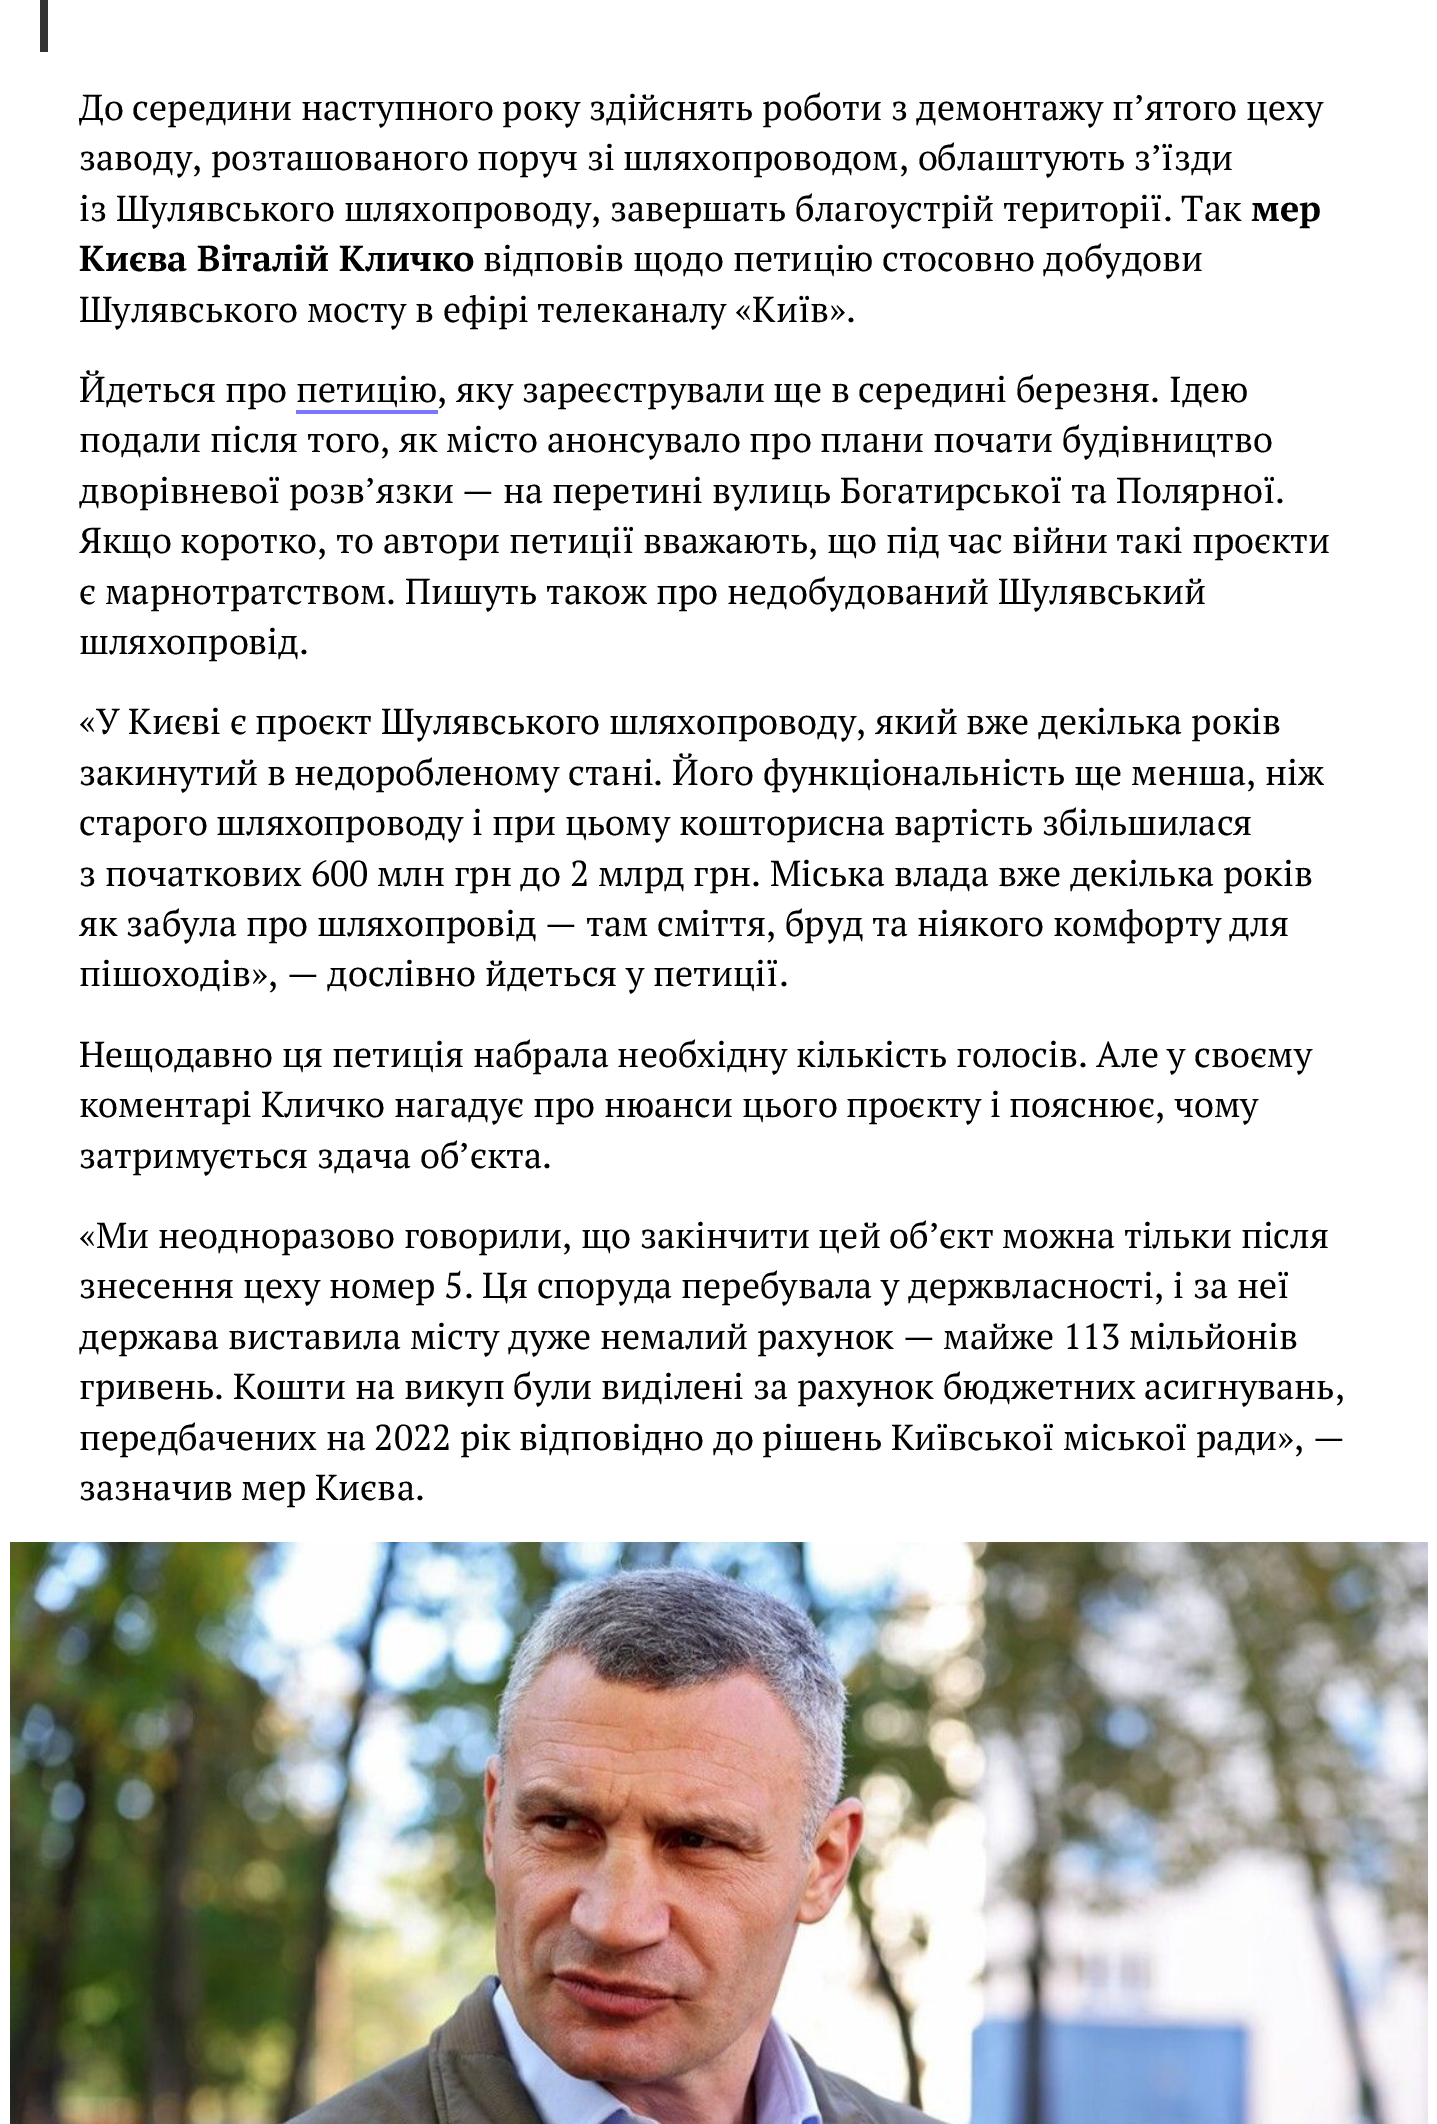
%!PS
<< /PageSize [1437 2124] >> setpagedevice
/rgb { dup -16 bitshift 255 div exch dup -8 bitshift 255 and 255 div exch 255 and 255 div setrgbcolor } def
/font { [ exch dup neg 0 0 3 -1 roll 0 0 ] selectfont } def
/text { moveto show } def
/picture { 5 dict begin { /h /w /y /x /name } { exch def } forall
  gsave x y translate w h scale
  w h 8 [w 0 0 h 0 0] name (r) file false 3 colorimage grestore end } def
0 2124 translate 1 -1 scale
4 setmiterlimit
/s1 { /PTSerif-Regular 36 font 16#000000 rgb } def
/s2 { /PTSerif-Bold 36 font 16#000000 rgb } def
16#FFFFFF rgb
0 0 1437 2124 rectfill
16#333333 rgb
40 0 8 52 rectfill
s1
(До середини наступного року здійснять роботи з демонтажу п’ятого цеху) 79 120 text
(заводу, розташованого поруч зі шляхопроводом, облаштують зʼїзди) 79 170 text
(із Шулявського шляхопроводу, завершать благоустрій території. Так) 79 221 text
s2
(мер) 1251 221 text
(Києва Віталій Кличко) 79 271 text
s1
(відповів щодо петицію стосовно добудови) 483 271 text
(Шулявського мосту в ефірі телеканалу «Київ».) 79 322 text
(Йдеться про петицію, яку зареєстрували ще в середині березня. Ідею) 79 402 text
16#7777FF rgb
296 410 142 4 rectfill
s1
(подали після того, як місто анонсувало про плани почати будівництво) 79 452 text
(дворівневої розв’язки — на перетині вулиць Богатирської та Полярної.) 79 503 text
(Якщо коротко, то автори петиції вважають, що під час війни такі проєкти) 79 553 text
(є марнотратством. Пишуть також про недобудований Шулявський) 79 604 text
(шляхопровід.) 79 654 text
(«У Києві є проєкт Шулявського шляхопроводу, який вже декілька років) 79 734 text
(закинутий в недоробленому стані. Його функціональність ще менша, ніж) 79 785 text
(старого шляхопроводу і при цьому кошторисна вартість збільшилася) 79 835 text
(з початкових 600 млн грн до 2 млрд грн. Міська влада вже декілька років) 79 886 text
(як забула про шляхопровід — там сміття, бруд та ніякого комфорту для) 79 936 text
(пішоходів», — дослівно йдеться у петиції.) 79 986 text
(Нещодавно ця петиція набрала необхідну кількість голосів. Але у своєму) 79 1067 text
(коментарі Кличко нагадує про нюанси цього проєкту і пояснює, чому) 79 1117 text
(затримується здача об’єкта.) 79 1168 text
(«Ми неодноразово говорили, що закінчити цей об’єкт можна тільки після) 79 1248 text
(знесення цеху номер 5. Ця споруда перебувала у держвласності, і за неї) 79 1298 text
(держава виставила місту дуже немалий рахунок — майже 113 мільйонів) 79 1349 text
(гривень. Кошти на викуп були виділені за рахунок бюджетних асигнувань,) 79 1399 text
(передбачених на 2022 рік відповідно до рішень Київської міської ради», —) 79 1450 text
(зазначив мер Києва.) 79 1500 text
(pic1.raw) 10 1542 1418 582 picture
showpage
